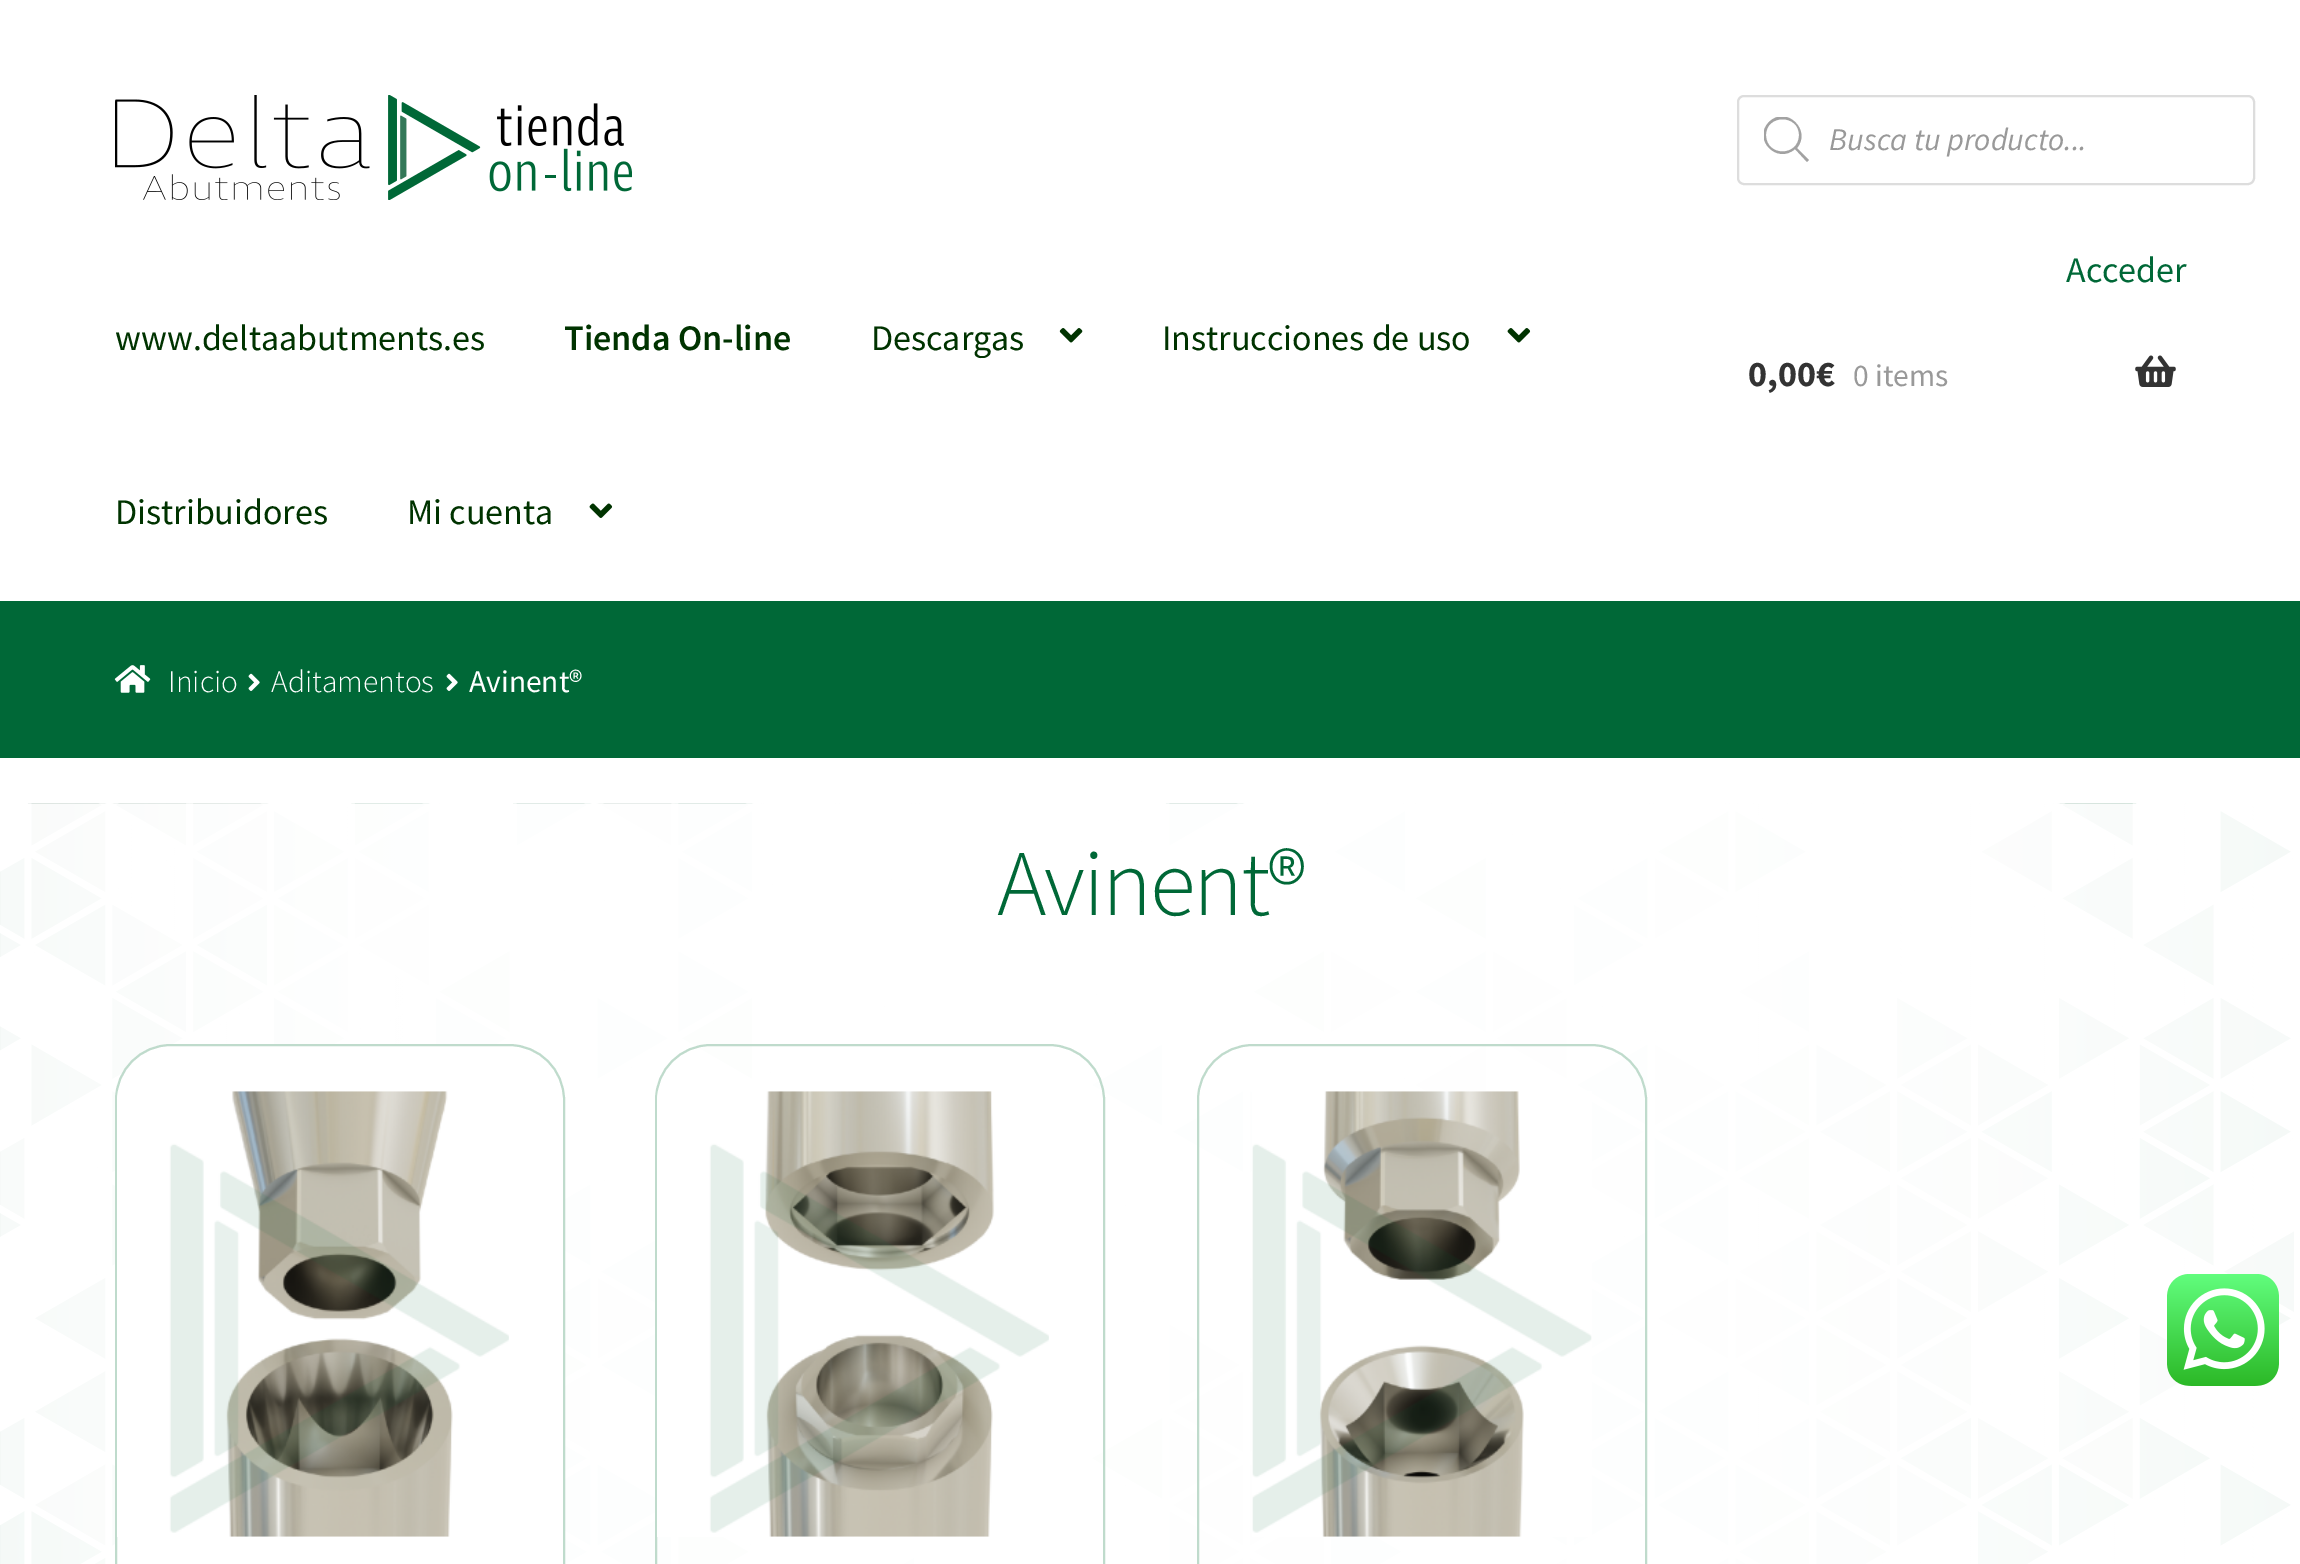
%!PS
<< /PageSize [2300 1564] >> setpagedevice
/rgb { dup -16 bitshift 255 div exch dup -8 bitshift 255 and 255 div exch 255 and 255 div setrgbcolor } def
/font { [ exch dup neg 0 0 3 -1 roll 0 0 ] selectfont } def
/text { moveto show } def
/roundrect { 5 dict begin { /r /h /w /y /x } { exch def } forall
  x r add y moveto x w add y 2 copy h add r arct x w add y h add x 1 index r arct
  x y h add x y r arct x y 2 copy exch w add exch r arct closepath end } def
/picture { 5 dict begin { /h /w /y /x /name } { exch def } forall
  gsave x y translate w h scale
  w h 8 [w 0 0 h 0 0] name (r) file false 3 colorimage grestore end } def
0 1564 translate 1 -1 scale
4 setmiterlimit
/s1 { /SourceSansPro-Italic 31.5 font 16#999999 rgb } def
/s2 { /SourceSansPro-Regular 36 font 16#006837 rgb } def
/s3 { /SourceSansPro-Regular 36 font 16#003300 rgb } def
/s4 { /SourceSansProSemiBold-SemiBold 36 font 16#003300 rgb } def
/s5 { /SourceSansPro-Bold 36 font 16#333333 rgb } def
/s6 { /SourceSansPro-Regular 31.5 font 16#999999 rgb } def
/s7 { /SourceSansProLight-Light 31.5 font 16#FFFFFF rgb } def
/s8 { /SourceSansPro-Regular 31.5 font 16#FFFFFF rgb } def
16#FFFFFF rgb
0 0 2300 1564 rectfill
(pic1.raw) 115 95 517 105 picture
16#DDDDDD rgb
2 setlinewidth
1738 96 516 88 6 roundrect stroke
gsave
1764 117 45 45 rectclip
16#A2A2A2 rgb
1809 160 moveto 1797 148 lineto 1812 130 1786 105 1769 122 curveto 1752 139 1777 165 1795 149 curveto 1807 162 lineto closepath 1766 135 moveto 1766 114 1799 114 1799 135 curveto 1799 157 1766 157 1766 135 curveto closepath fill
grestore
s1
(Busca tu producto...) 1829 150 text
s2
(Acceder) 2066 282 text
s3
(www.deltaabutments.es) 115 350 text
s4
(Tienda On-line) 564 350 text
s3
(Descargas) 871 350 text
(pic2.raw) 1059 328 24 15 picture
(Instrucciones de uso) 1162 350 text
(pic3.raw) 1507 328 24 15 picture
(Distribuidores) 115 524 text
(Mi cuenta) 407 524 text
(pic4.raw) 589 503 24 15 picture
s5
(0,00€) 1748 386 text
s6
(0 items) 1853 386 text
(pic5.raw) 2135 355 41 32 picture
16#006837 rgb
0 601 2300 157 rectfill
(pic6.raw) 114 665 37 28 picture
s7
(Inicio) 168 692 text
(pic7.raw) 248 673 12 18 picture
(Aditamentos) 271 692 text
(pic7.raw) 446 673 12 18 picture
s8
(Avinent®) 469 692 text
(pic8.raw) 0 803 2294 761 picture
/SourceSansProLight-Light 94 font
16#006837 rgb
997 915 moveto -2.25 0 (Avinent®) ashow
16#FFFFFF rgb
116 1045 448 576 55 roundrect gsave fill grestore
16#BFDBCC rgb
stroke
(pic9.raw) 117 1091 392 446 picture
656 1045 448 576 55 roundrect stroke
(pic10.raw) 657 1091 392 446 picture
1198 1045 448 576 55 roundrect stroke
(pic11.raw) 1252 1091 340 446 picture
(pic12.raw) 2167 1274 112 112 picture
showpage
